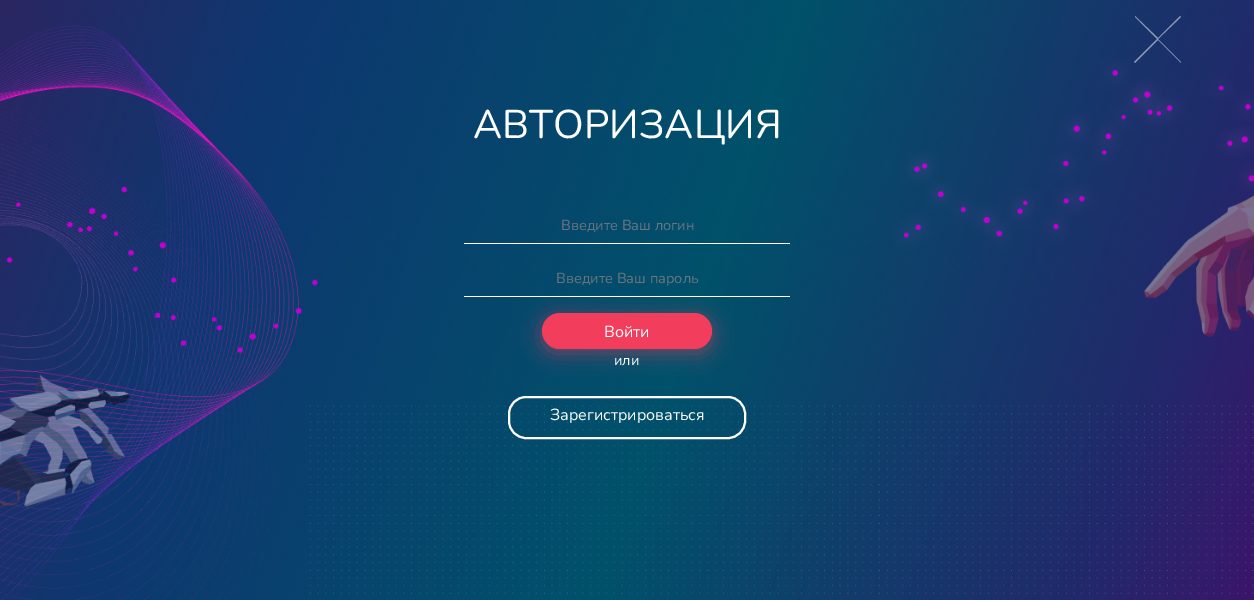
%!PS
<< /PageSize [1254 600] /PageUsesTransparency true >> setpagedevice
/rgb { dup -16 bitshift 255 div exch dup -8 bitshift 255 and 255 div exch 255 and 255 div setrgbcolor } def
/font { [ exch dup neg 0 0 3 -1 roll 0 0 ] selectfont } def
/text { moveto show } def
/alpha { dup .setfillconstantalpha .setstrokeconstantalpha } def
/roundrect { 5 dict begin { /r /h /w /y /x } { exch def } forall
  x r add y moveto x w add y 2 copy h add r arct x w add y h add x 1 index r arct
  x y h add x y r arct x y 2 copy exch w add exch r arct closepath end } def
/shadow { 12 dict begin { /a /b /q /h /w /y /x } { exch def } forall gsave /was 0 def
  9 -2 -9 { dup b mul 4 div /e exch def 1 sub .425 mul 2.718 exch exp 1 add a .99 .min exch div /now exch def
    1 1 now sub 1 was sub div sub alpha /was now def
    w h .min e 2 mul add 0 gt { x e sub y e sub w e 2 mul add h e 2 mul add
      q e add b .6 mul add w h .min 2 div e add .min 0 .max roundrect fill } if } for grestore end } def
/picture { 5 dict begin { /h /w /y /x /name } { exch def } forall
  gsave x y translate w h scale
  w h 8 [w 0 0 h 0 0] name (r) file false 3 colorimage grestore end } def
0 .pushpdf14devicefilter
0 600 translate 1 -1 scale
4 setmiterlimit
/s1 { /Nunito-ExtraLight 40 font 16#FFFFFF rgb } def
/s2 { /Nunito-ExtraLight 14.5 font 16#6C757D rgb } def
/s3 { /Nunito-ExtraLight 16 font 16#FFFFFF rgb } def
/s4 { /Nunito-ExtraLight 14.5 font 16#FFFFFF rgb } def
16#FFFFFF rgb
0 0 1254 600 rectfill
(pic1.raw) 0 0 1254 600 picture
0.5 alpha
1158 40 moveto 1135 63 lineto 1134 62 lineto 1157 39 lineto 1135 17 lineto 1135 16 lineto 1158 38 lineto 1180 16 lineto 1181 17 lineto 1158 39 lineto 1181 62 lineto 1181 63 lineto closepath eofill
1 alpha
s1
(АВТОРИЗАЦИЯ) 473 138 text
464 243 326 1 rectfill
s2
(Введите Ваш логин) 561 230 text
16#FFFFFF rgb
464 296 326 1 rectfill
s2
(Введите Ваш пароль) 556 283 text
16#F33D5D rgb
542 317 170 36 18 10 0.5 shadow
542 313 170 36 18 roundrect fill
s3
(Войти) 604 337 text
s4
(или) 614 365 text
2 setlinewidth
509 397 236 41 17 roundrect stroke
s3
(Зарегистрироваться) 550 420 text
.poppdf14devicefilter showpage
